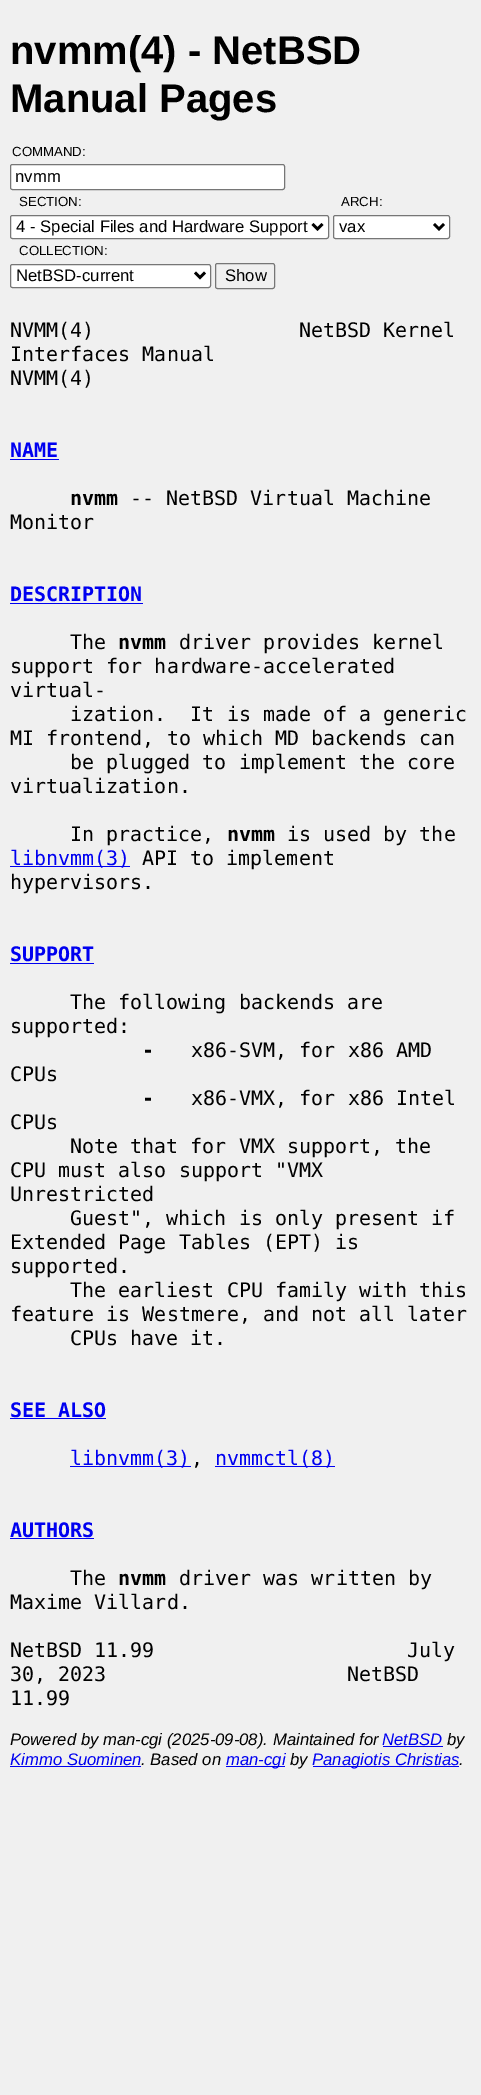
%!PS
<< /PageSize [481 2095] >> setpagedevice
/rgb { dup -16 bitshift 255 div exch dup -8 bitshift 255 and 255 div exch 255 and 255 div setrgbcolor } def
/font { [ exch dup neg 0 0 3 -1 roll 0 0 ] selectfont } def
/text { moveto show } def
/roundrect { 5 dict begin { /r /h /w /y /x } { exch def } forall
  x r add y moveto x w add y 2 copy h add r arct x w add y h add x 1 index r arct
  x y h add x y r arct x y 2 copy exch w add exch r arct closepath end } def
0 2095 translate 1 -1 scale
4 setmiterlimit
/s1 { /LiberationSans-Bold 40 font 16#000000 rgb } def
/s2 { /LiberationSans-Regular 13.25 font 16#000000 rgb } def
/s3 { /LiberationSans-Regular 16.7 font 16#000000 rgb } def
/s4 { /DejaVuSansMono-Regular 20 font 16#000000 rgb } def
/s5 { /DejaVuSansMono-Bold 20 font 16#0000F0 rgb } def
/s6 { /DejaVuSansMono-Bold 20 font 16#000000 rgb } def
/s7 { /DejaVuSansMono-Regular 20 font 16#0000F0 rgb } def
/s8 { /LiberationSans-Italic 16.7 font 16#000000 rgb } def
/s9 { /LiberationSans-Italic 16.7 font 16#0000F0 rgb } def
16#F0F0F0 rgb
0 0 481 2095 rectfill
s1
(nvmm\(4\) - NetBSD) 10 64 text
(Manual Pages) 10 112 text
s2
(COMMAND:) 12 156 text
16#FFFFFF rgb
10.5 164.5 274 25 2 roundrect gsave fill grestore
16#767676 rgb
stroke
s3
(nvmm) 15 182 text
s2
(SECTION:) 19 206 text
16#FFFFFF rgb
10.5 215.5 318 23 2 roundrect gsave fill grestore
16#767676 rgb
stroke
16#000000 rgb
2.5 setlinewidth
312.5 224 moveto 317.5 229 lineto 322.5 224 lineto stroke
s3
(4 - Special Files and Hardware Support) 16 232 text
s2
(ARCH:) 341 206 text
16#FFFFFF rgb
333.5 215.5 116 23 2 roundrect gsave fill grestore
16#767676 rgb
1 setlinewidth
stroke
16#000000 rgb
2.5 setlinewidth
434 224 moveto 439 229 lineto 444 224 lineto stroke
s3
(vax) 339 232 text
s2
(COLLECTION:) 19 255 text
16#FFFFFF rgb
10.5 264.5 200 23 2 roundrect gsave fill grestore
16#767676 rgb
1 setlinewidth
stroke
16#000000 rgb
2.5 setlinewidth
195 272.5 moveto 200 277.5 lineto 205 272.5 lineto stroke
s3
(NetBSD-current) 16 281 text
16#767676 rgb
1 setlinewidth
215.5 263.5 59 25 2 roundrect stroke
s3
(Show) 225 281 text
s4
(NVMM\(4\)                 NetBSD Kernel) 10 337 text
(Interfaces Manual) 10 361 text
(NVMM\(4\)) 10 385 text
s5
(NAME) 10 457 text
10 459 49 1 rectfill
s6
(nvmm) 70 505 text
s4
(-- NetBSD Virtual Machine) 130 505 text
(Monitor) 10 529 text
s5
(DESCRIPTION) 10 601 text
10 603 133 1 rectfill
s4
(The) 70 649 text
s6
(nvmm) 118 649 text
s4
(driver provides kernel) 179 649 text
(support for hardware-accelerated) 10 673 text
(virtual-) 10 697 text
(ization.  It is made of a generic) 70 721 text
(MI frontend, to which MD backends can) 10 745 text
(be plugged to implement the core) 70 769 text
(virtualization.) 10 793 text
(In practice,) 70 841 text
s6
(nvmm) 227 841 text
s4
(is used by the) 287 841 text
16#0000F0 rgb
10 866 120 1 rectfill
(libnvmm\(3\)) 10 865 text
s4
(API to implement) 142 865 text
(hypervisors.) 10 889 text
s5
(SUPPORT) 10 961 text
10 963 84 1 rectfill
s4
(The following backends are) 70 1009 text
(supported:) 10 1033 text
s6
(-) 142 1057 text
s4
(x86-SVM, for x86 AMD) 191 1057 text
(CPUs) 10 1081 text
s6
(-) 142 1105 text
s4
(x86-VMX, for x86 Intel) 191 1105 text
(CPUs) 10 1129 text
(Note that for VMX support, the) 70 1153 text
(CPU must also support "VMX) 10 1177 text
(Unrestricted) 10 1201 text
(Guest", which is only present if) 70 1225 text
(Extended Page Tables \(EPT\) is) 10 1249 text
(supported.) 10 1273 text
(The earliest CPU family with this) 70 1297 text
(feature is Westmere, and not all later) 10 1321 text
(CPUs have it.) 70 1345 text
s5
(SEE ALSO) 10 1417 text
10 1418 96 1 rectfill
70 1466 121 1 rectfill
s7
(libnvmm\(3\)) 70 1465 text
s4
(,) 191 1465 text
16#0000F0 rgb
215 1466 120 1 rectfill
(nvmmctl\(8\)) 215 1465 text
s5
(AUTHORS) 10 1537 text
10 1538 84 1 rectfill
s4
(The) 70 1585 text
s6
(nvmm) 118 1585 text
s4
(driver was written by) 179 1585 text
(Maxime Villard.) 10 1609 text
(NetBSD 11.99                     July) 10 1657 text
(30, 2023                    NetBSD) 10 1681 text
(11.99) 10 1705 text
s8
(Powered by man-cgi \(2025-09-08\). Maintained for) 10 1745 text
s9
(NetBSD) 382 1745 text
383 1746 60 1 rectfill
s8
(by) 447 1745 text
s9
(Kimmo Suominen) 10 1765 text
10 1766 131 1 rectfill
s8
(. Based on) 141 1765 text
16#0000F0 rgb
226 1766 59 1 rectfill
(man-cgi) 226 1765 text
s8
(by) 290 1765 text
16#0000F0 rgb
313 1766 146 1 rectfill
(Panagiotis Christias) 312 1765 text
s8
(.) 459 1765 text
showpage
